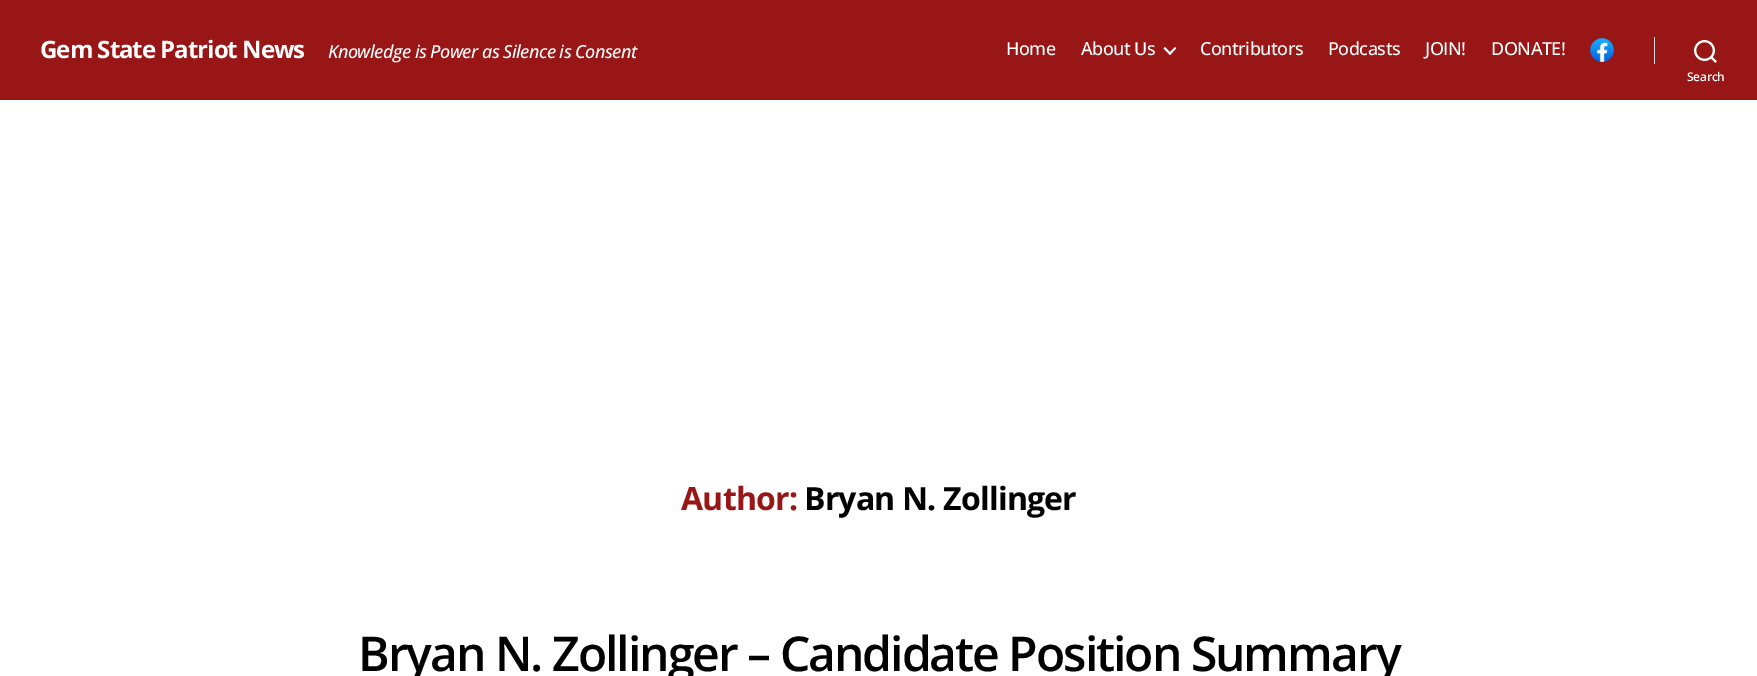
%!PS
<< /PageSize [1757 676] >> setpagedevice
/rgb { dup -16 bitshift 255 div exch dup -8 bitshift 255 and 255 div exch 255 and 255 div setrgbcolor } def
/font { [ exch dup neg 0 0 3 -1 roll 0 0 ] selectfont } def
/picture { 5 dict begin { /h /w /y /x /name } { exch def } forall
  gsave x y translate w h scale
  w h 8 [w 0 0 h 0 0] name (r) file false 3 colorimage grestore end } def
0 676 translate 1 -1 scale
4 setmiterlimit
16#FFFFFF rgb
0 0 1757 676 rectfill
16#991616 rgb
0 0 1757 100 rectfill
/OpenSans-Bold 24 font
16#FFFFFF rgb
40 58 moveto -1 0 (Gem State Patriot News) ashow
/OpenSans-MediumItalic 18 font
328 58 moveto -0.55 0 (Knowledge is Power as Silence is Consent) ashow
/OpenSans-Medium 18 font
1006 55 moveto -0.5 0 (Home) ashow
1081 55 moveto -0.5 0 (About Us) ashow
1163.5 48.5 moveto 1165 47 lineto 1171 53.5 lineto 1170 55 lineto closepath fill
1168.5 53.5 moveto 1175 47 lineto 1176 48.5 lineto 1170 55 lineto closepath fill
1200 55 moveto -0.5 0 (Contributors) ashow
1328 55 moveto -0.5 0 (Podcasts) ashow
1425 55 moveto -0.5 0 (JOIN!) ashow
1491 55 moveto -0.5 0 (DONATE!) ashow
(pic1.raw) 1590 38 24 24 picture
16#DBDBDB rgb
1654 37 1 27 rectfill
(pic2.raw) 1694 40 23 23 picture
/OpenSans-SemiBold 12 font
16#FFFFFF rgb
1687 81 moveto -0.25 0 (Search) ashow
/OpenSans-Bold 32 font
16#991616 rgb
681 510 moveto -0.8 0 (Author:) ashow
16#000000 rgb
804 510 moveto -0.8 0 (Bryan N. Zollinger) ashow
/OpenSans-SemiBold 48 font
358 671 moveto -2 0 (Bryan N. Zollinger – Candidate Position Summary) ashow
showpage
